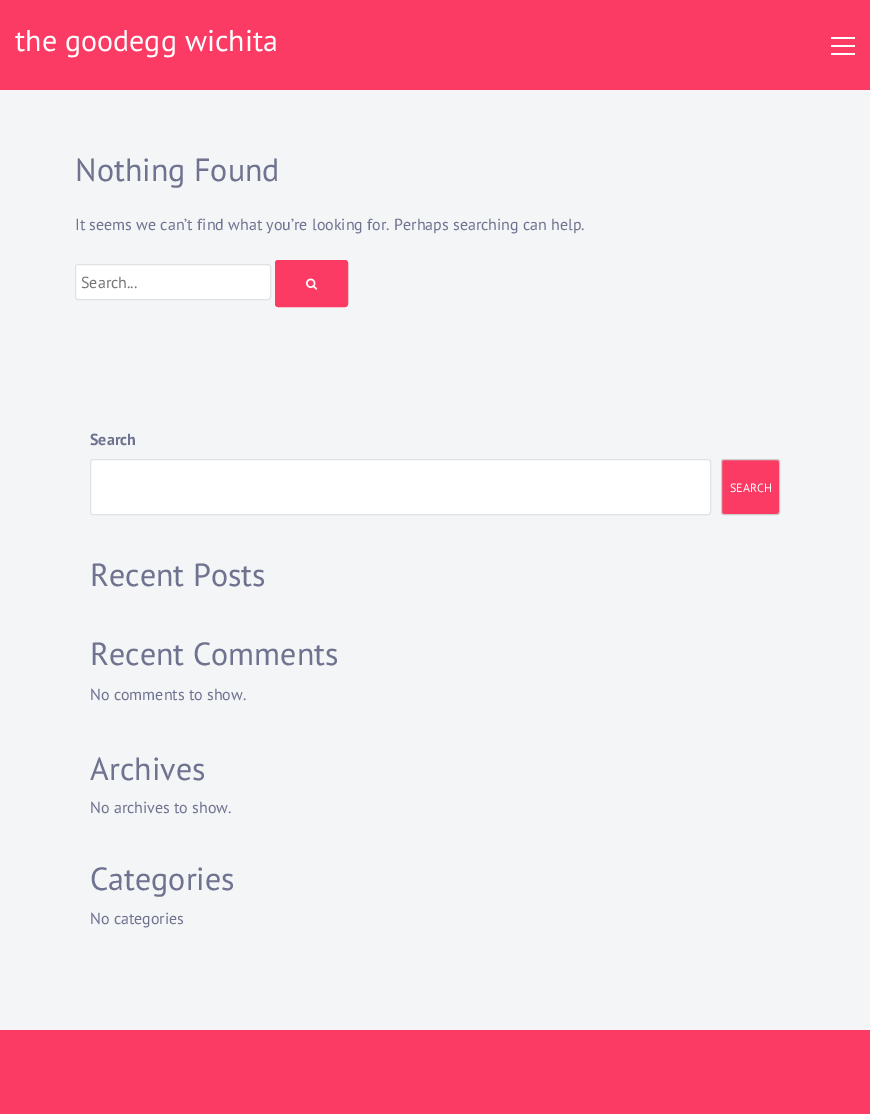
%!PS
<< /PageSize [870 1114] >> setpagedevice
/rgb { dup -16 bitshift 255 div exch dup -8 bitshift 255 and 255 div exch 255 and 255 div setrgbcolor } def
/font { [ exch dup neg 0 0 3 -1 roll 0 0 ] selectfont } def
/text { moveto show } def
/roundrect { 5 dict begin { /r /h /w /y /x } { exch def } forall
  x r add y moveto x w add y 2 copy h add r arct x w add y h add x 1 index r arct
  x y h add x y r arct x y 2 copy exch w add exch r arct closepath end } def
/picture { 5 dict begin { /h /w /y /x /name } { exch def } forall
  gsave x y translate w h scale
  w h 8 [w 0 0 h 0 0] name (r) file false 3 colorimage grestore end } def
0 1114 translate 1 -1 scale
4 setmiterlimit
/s1 { /PTSans-Regular 30 font 16#FFFFFF rgb } def
/s2 { /PTSans-Regular 32 font 16#6F738F rgb } def
/s3 { /PTSans-Regular 16 font 16#6F738F rgb } def
/s4 { /PTSans-Regular 16 font 16#757575 rgb } def
/s5 { /PTSans-Bold 16 font 16#6F738F rgb } def
/s6 { /PTSans-Regular 12 font 16#FFFFFF rgb } def
16#F3F5F7 rgb
0 0 870 1114 rectfill
16#FB3B64 rgb
0 0 870 90 rectfill
s1
(the goodegg wichita) 15 51 text
831 45 24 2 rectfill
831 37 24 2 rectfill
831 53 24 2 rectfill
s2
(Nothing Found) 75 181 text
s3
(It seems we can’t find what you’re looking for. Perhaps searching can help.) 75 230 text
16#FFFFFF rgb
75.5 264.5 195 35 2.5 roundrect gsave fill grestore
16#E1E2E4 rgb
stroke
s4
(Search...) 81 288 text
16#FB3B64 rgb
275.5 260.5 72 46 2.5 roundrect gsave fill grestore
stroke
(pic1.raw) 306 278 12 12 picture
s5
(Search) 90 445 text
16#FFFFFF rgb
90.5 459.5 620 55 2.5 roundrect gsave fill grestore
16#E1E2E4 rgb
stroke
16#FB3B64 rgb
721.5 459.5 58 55 2.5 roundrect gsave fill grestore
16#CCCCCC rgb
stroke
s6
(SEARCH) 730 492 text
s2
(Recent Posts) 90 586 text
(Recent Comments) 90 665 text
s3
(No comments to show.) 90 700 text
s2
(Archives) 90 780 text
s3
(No archives to show.) 90 813 text
s2
(Categories) 90 890 text
s3
(No categories) 90 924 text
16#FB3B64 rgb
0 1030 870 84 rectfill
showpage
